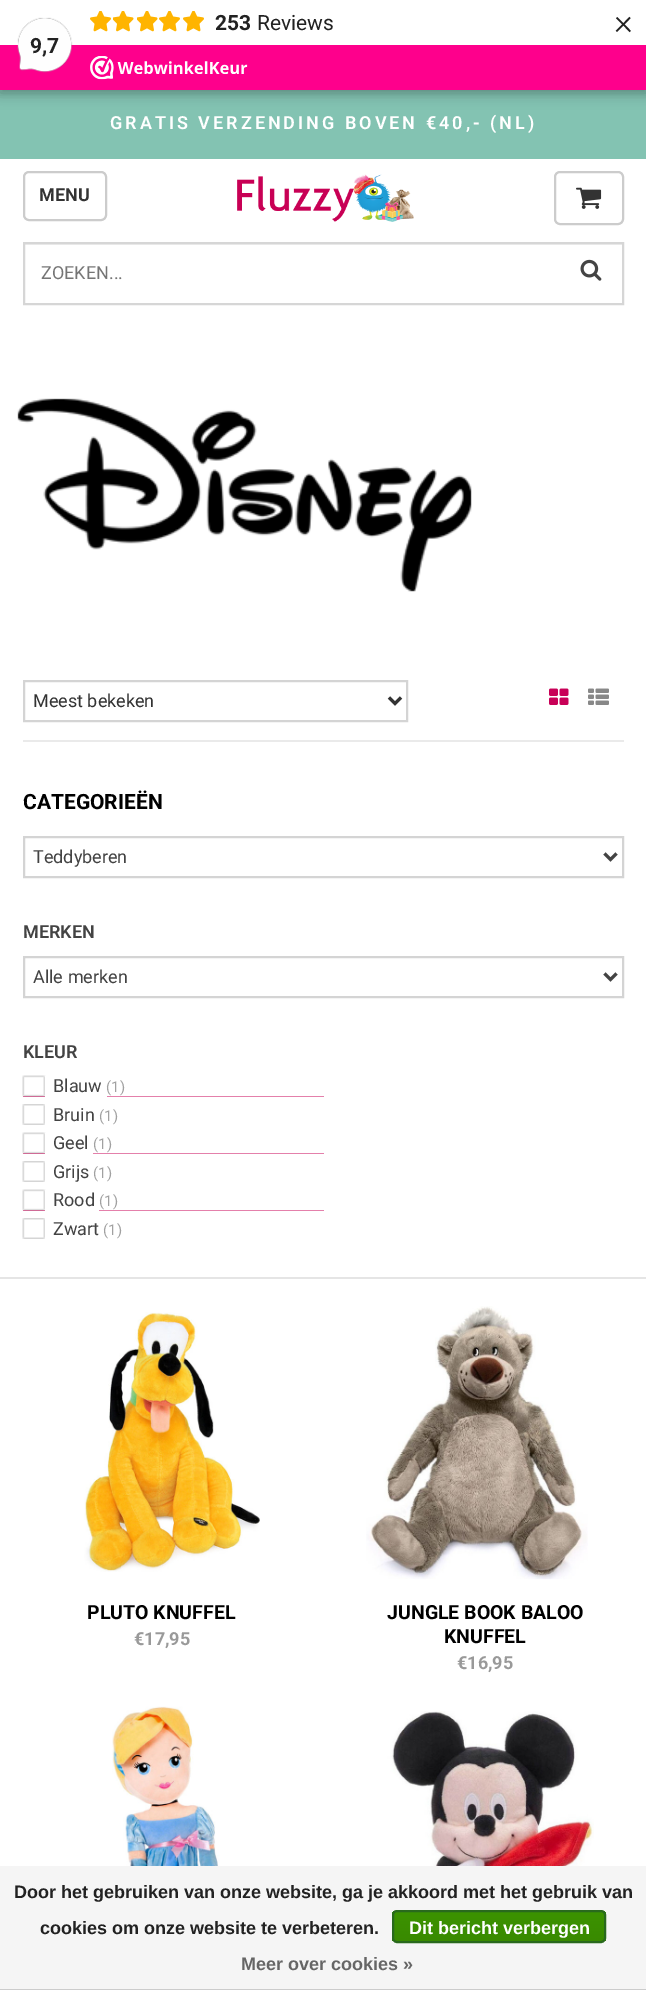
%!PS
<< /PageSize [646 1990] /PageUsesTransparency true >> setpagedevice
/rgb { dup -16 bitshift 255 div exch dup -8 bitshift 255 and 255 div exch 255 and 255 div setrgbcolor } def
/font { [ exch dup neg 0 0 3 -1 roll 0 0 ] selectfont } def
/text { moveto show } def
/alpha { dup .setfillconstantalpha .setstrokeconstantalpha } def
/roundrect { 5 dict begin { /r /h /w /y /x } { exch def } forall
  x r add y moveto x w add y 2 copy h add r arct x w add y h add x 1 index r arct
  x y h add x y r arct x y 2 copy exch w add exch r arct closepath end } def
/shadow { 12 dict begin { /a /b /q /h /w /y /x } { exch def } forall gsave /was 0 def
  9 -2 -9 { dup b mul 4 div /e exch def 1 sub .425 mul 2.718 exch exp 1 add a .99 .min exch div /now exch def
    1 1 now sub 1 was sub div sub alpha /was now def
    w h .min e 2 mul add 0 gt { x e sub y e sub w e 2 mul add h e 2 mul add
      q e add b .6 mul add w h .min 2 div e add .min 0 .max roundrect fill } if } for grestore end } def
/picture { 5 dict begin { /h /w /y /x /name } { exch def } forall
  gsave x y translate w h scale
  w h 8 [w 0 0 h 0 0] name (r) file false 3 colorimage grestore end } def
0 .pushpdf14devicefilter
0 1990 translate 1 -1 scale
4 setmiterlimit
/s1 { /Roboto-Bold 21 font 16#222222 rgb } def
/s2 { /Roboto-Regular 21 font 16#222222 rgb } def
/s3 { /Roboto-Light 36 font 16#222222 rgb } def
/s4 { /Roboto-Bold 18 font 16#333333 rgb } def
/s5 { /Roboto-Regular 18 font 16#757575 rgb } def
/s6 { /Roboto-Regular 18 font 16#333333 rgb } def
/s7 { /Roboto-Bold 21 font 16#000000 rgb } def
/s8 { /Roboto-Regular 18 font 16#434343 rgb } def
/s9 { /Roboto-SemiBold 18 font 16#434343 rgb } def
/s10 { /Roboto-Regular 15 font 16#A1A1A1 rgb } def
/s11 { /Roboto-Bold 19.5 font 16#000000 rgb } def
/s12 { /Roboto-Bold 18 font 16#999999 rgb } def
/s13 { /LiberationSans-Bold 18 font 16#222222 rgb } def
/s14 { /LiberationSans-Bold 18 font 16#FFFFFF rgb } def
/s15 { /LiberationSans-Bold 18 font 16#666666 rgb } def
16#FFFFFF rgb
0 0 646 1990 rectfill
16#83C3B2 rgb
0 90 646 69 rectfill
16#000000 rgb
-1 -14 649 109 0 4.5 0.15 shadow
0 3 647 90 0 7.5 0.15 shadow
16#FFFFFF rgb
0 0 646 45 rectfill
(pic1.raw) 90 11 21 21 picture
(pic2.raw) 113 11 21 21 picture
(pic2.raw) 137 11 21 21 picture
(pic1.raw) 159 11 21 21 picture
(pic1.raw) 183 11 21 21 picture
s1
(253) 215 30 text
s2
(Reviews) 257 30 text
s3
(×) 614 34 text
16#FE008C rgb
0 45 646 45 rectfill
(pic3.raw) 17 17 56 56 picture
s1
(9,7) 30 53 text
(pic4.raw) 90 56 158 24 picture
/Roboto-SemiBold 18 font
16#FFFFFF rgb
110 129 moveto 3 0 (GRATIS VERZENDING BOVEN €40,- \(NL\)) ashow
16#CCCCCC rgb
2 setlinewidth
24 172 82 48 5 roundrect stroke
s4
(MENU) 39 201 text
(pic5.raw) 237 174 177 48 picture
16#CCCCCC rgb
555 172 68 52 5 roundrect stroke
(pic6.raw) 576 187 26 22 picture
16#EEEEEE rgb
24 244 599 1 rectfill
16#D6D6D6 rgb
24 243 599 61 rectstroke
s5
(ZOEKEN...) 41 279 text
(pic7.raw) 580 259 22 22 picture
(pic8.raw) 17 398 455 194 picture
16#D4D4D4 rgb
24 681 383 40 rectstroke
16#333333 rgb
3 setlinewidth
389 697.5 moveto 395 703.5 lineto 401 697.5 lineto stroke
(Meest bekeken) 33 707 text
(pic9.raw) 549 688 20 17 picture
(pic10.raw) 588 688 21 17 picture
16#EAEAEA rgb
23 740 601 2 rectfill
16#E5E5E5 rgb
0 1277 646 2 rectfill
s7
(CATEGORIEËN) 23 809 text
16#D4D4D4 rgb
2 setlinewidth
24 837 599 40 rectstroke
16#434343 rgb
3 setlinewidth
604.5 853.5 moveto 610.5 859.5 lineto 616.5 853.5 lineto stroke
s8
(Teddyberen) 33 863 text
s9
(MERKEN) 23 938 text
16#D4D4D4 rgb
2 setlinewidth
24 957 599 40 rectstroke
16#434343 rgb
3 setlinewidth
604.5 973.5 moveto 610.5 979.5 lineto 616.5 973.5 lineto stroke
s8
(Alle merken) 33 983 text
s9
(KLEUR) 23 1058 text
16#C80057 rgb
23 1096 301 1 rectfill
(pic11.raw) 22 1075 302 22 picture
16#FFFFFF rgb
45 1076 62 21 rectfill
s8
(Blauw) 53 1092 text
s10
(\(1\)) 106 1092 text
(pic12.raw) 22 1104 302 21 picture
s8
(Bruin) 53 1121 text
16#FFFFFF rgb
45 1104 1 21 rectfill
s10
(\(1\)) 99 1121 text
16#C80057 rgb
23 1153 301 1 rectfill
(pic11.raw) 22 1132 302 22 picture
16#FFFFFF rgb
45 1133 48 21 rectfill
s8
(Geel) 53 1149 text
s10
(\(1\)) 93 1149 text
(pic12.raw) 22 1161 302 21 picture
s8
(Grijs) 53 1178 text
16#FFFFFF rgb
45 1161 1 21 rectfill
s10
(\(1\)) 93 1178 text
16#C80057 rgb
23 1210 301 1 rectfill
(pic11.raw) 22 1189 302 22 picture
16#FFFFFF rgb
45 1190 54 21 rectfill
s8
(Rood) 53 1206 text
s10
(\(1\)) 99 1206 text
(pic12.raw) 22 1218 302 21 picture
s8
(Zwart) 53 1235 text
16#FFFFFF rgb
45 1218 1 21 rectfill
s10
(\(1\)) 103 1235 text
(pic13.raw) 84 1312 176 260 picture
s11
(PLUTO KNUFFEL) 87 1619 text
s12
(€17,95) 134 1645 text
(pic14.raw) 366 1306 222 274 picture
s11
(JUNGLE BOOK BALOO) 387 1619 text
(KNUFFEL) 444 1643 text
s12
(€16,95) 457 1669 text
(pic15.raw) 112 1706 108 160 picture
(pic16.raw) 375 1711 219 155 picture
16#F5F5F5 rgb
0 1866 646 123 rectfill
16#CCCCCC rgb
0 1989 646 1 rectfill
s13
(Door het gebruiken van onze website, ga je akkoord met het gebruik van) 14 1898 text
(cookies om onze website te verbeteren.) 40 1934 text
gsave
392 1910 214 33 5 roundrect clip newpath
gsave 392 1911 moveto 606 1911 lineto 606 1941 lineto 392 1941 lineto closepath clip newpath
<< /ShadingType 2 /ColorSpace /DeviceRGB /Coords [499 1911 499 1941] /Extend [true true] /Function << /FunctionType 2 /Domain [0 1] /C0 [0.235 0.576 0] /C1 [0.224 0.541 0] /N 1 >> >> shfill grestore
grestore
16#29691D rgb
2 setlinewidth
393 1911 212 31 4 roundrect stroke
s14
(Dit bericht verbergen) 409 1934 text
s15
(Meer over cookies ») 241 1970 text
.poppdf14devicefilter showpage
